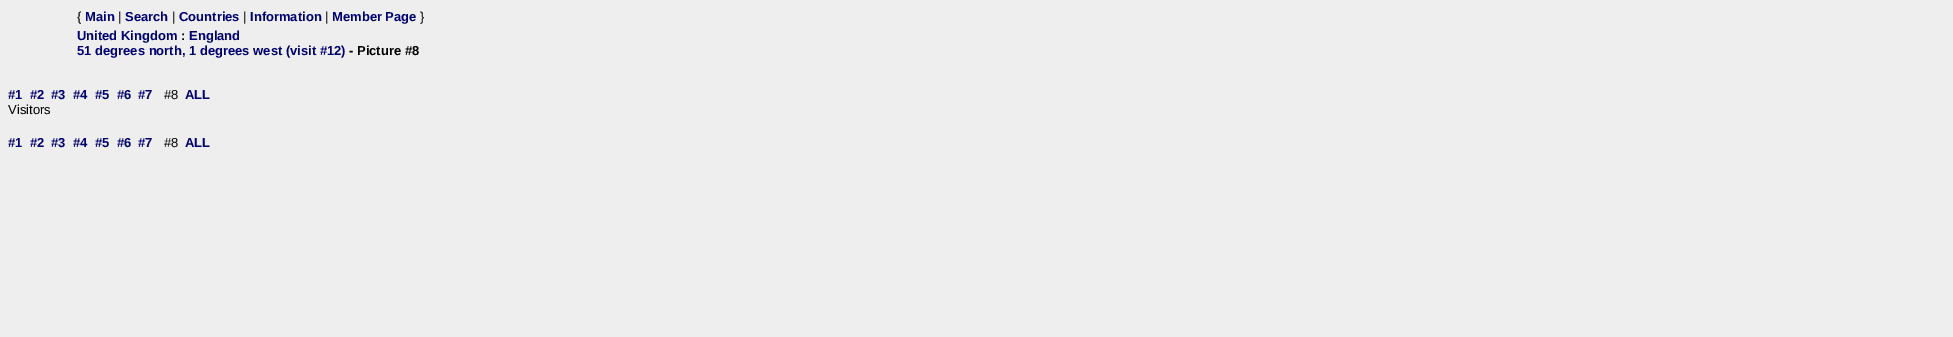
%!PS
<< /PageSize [1953 337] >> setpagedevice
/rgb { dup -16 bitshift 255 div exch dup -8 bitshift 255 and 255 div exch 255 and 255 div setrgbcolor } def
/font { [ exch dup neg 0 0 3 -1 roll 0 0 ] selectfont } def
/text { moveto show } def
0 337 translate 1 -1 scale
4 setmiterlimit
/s1 { /LiberationSans-Regular 13 font 16#000000 rgb } def
/s2 { /LiberationSans-Bold 13 font 16#000070 rgb } def
/s3 { /LiberationSans-Bold 13 font 16#000000 rgb } def
16#EEEEEE rgb
0 0 1953 337 rectfill
s1
({) 77 21 text
s2
(Main) 85 21 text
s1
(|) 118 21 text
s2
(Search) 125 21 text
s1
(|) 172 21 text
s2
(Countries) 179 21 text
s1
(|) 243 21 text
s2
(Information) 250 21 text
s1
(|) 325 21 text
s2
(Member Page) 332 21 text
s1
(}) 420 21 text
s2
(United Kingdom) 77 40 text
s3
(:) 181 40 text
s2
(England) 189 40 text
(51 degrees north, 1 degrees west \(visit #12\)) 77 55 text
s3
(- Picture #8) 349 55 text
s2
(#1) 8 99 text
(#2) 30 99 text
(#3) 51 99 text
(#4) 73 99 text
(#5) 95 99 text
(#6) 117 99 text
(#7) 138 99 text
s1
(#8) 164 99 text
s2
(ALL) 185 99 text
s1
(Visitors) 8 114 text
s2
(#1) 8 147 text
(#2) 30 147 text
(#3) 51 147 text
(#4) 73 147 text
(#5) 95 147 text
(#6) 117 147 text
(#7) 138 147 text
s1
(#8) 164 147 text
s2
(ALL) 185 147 text
showpage
